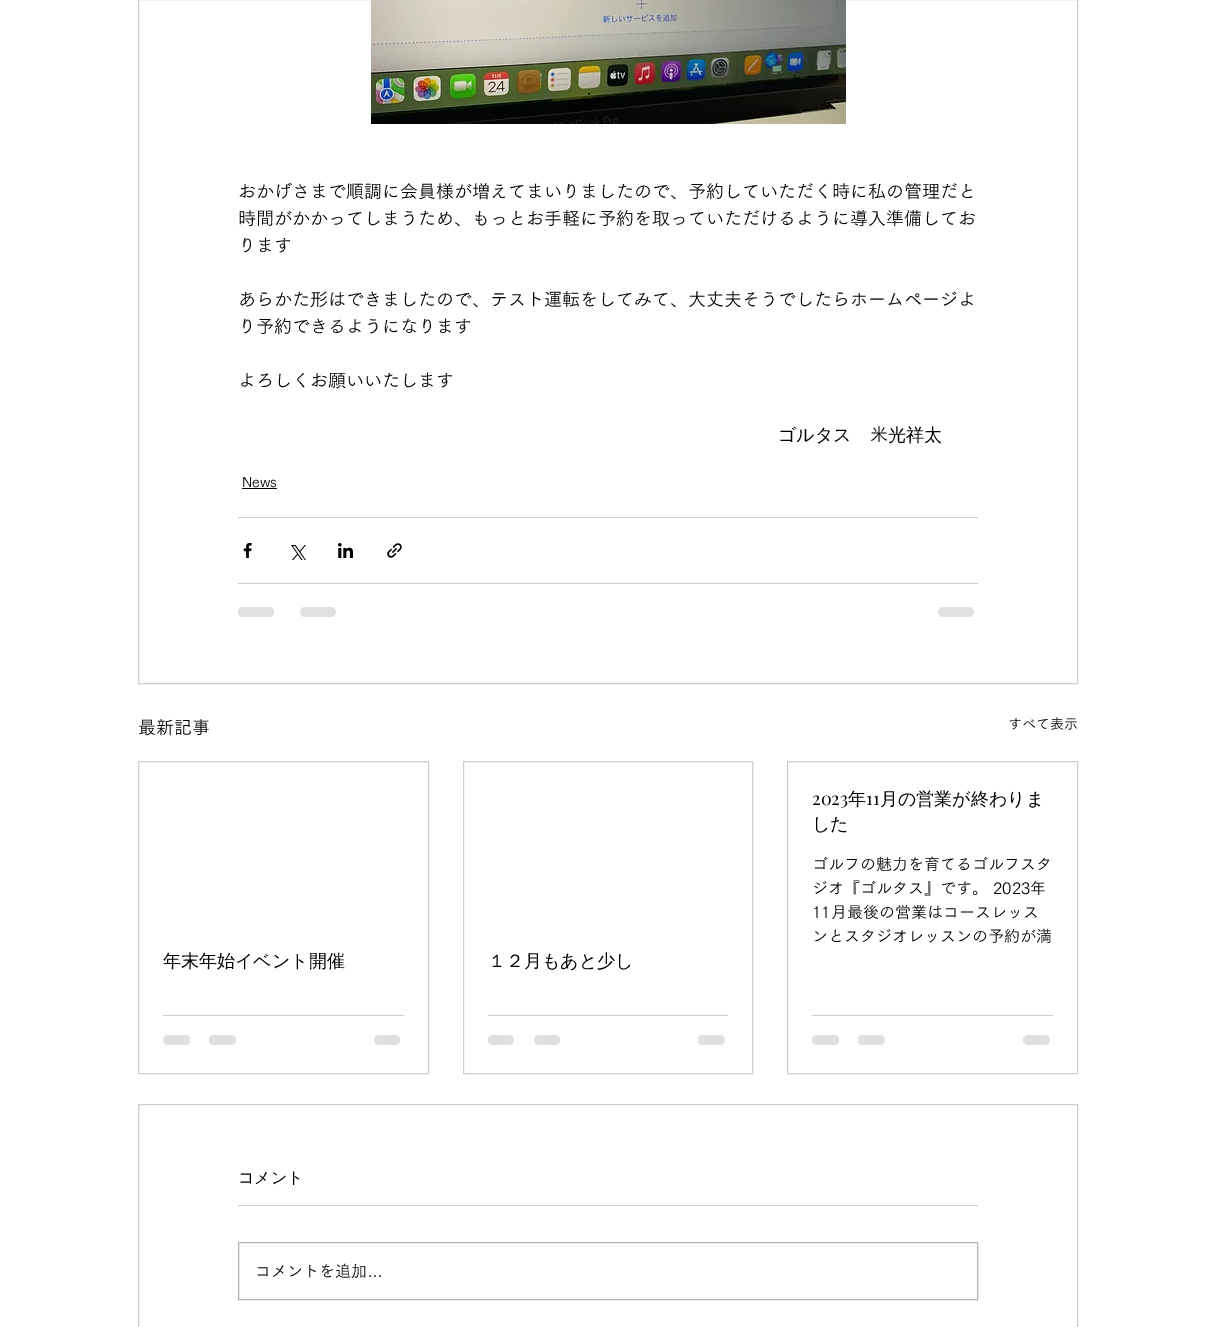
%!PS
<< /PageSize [1216 1327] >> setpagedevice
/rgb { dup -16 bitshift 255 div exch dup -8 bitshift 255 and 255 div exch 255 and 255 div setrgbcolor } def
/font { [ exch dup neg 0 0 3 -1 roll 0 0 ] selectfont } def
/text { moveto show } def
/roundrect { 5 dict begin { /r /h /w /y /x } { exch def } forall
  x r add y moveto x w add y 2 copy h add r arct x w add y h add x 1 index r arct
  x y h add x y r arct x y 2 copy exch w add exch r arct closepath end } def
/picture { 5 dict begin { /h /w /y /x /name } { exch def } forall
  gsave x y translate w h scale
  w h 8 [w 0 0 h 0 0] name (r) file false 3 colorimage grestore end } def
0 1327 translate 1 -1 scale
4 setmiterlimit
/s1 { /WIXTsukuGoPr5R-Regular 18 font 16#000000 rgb } def
/s2 { /WenQuanYiZenHei-Medium 18 font 16#000000 rgb } def
/s3 { /WIXTsukuGoPr5R-Regular 14 font 16#000000 rgb } def
/s4 { /PlayfairDisplay-Regular 18 font 16#000000 rgb } def
/s5 { /WIXTsukuGoPr5R-Regular 16 font 16#000000 rgb } def
/s6 { /WenQuanYiZenHei-Medium 16 font 16#000000 rgb } def
/s7 { /LiberationSans-Regular 16 font 16#000000 rgb } def
16#FFFFFF rgb
0 0 1216 1327 rectfill
16#CFCFCF rgb
138.5 -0.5 939 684 rectstroke
(pic1.raw) 371 0 475 124 picture
s1
(おかげさまで順調に会員様が増えてまいりましたので、予約していただく時に私の管理だと) 238 198 text
(時間がかかってしまうため、もっとお手軽に予約を取っていただけるように導入準備してお) 238 225 text
(ります) 238 252 text
(あらかた形はできましたので、テスト運転をしてみて、大丈夫そうでしたらホームページよ) 238 306 text
(り予約できるようになります) 238 333 text
(よろしくお願いいたします) 238 387 text
s2
(ゴルタス) 778 441 text
s1
(米) 870 441 text
s2
(光祥太) 888 441 text
s3
(News) 242 487 text
242 488 35 1 rectfill
16#CCCCCC rgb
238 517 740 1 rectfill
(pic2.raw) 243 543 9 15 picture
(pic3.raw) 291 545 15 15 picture
(pic4.raw) 338 543 15 15 picture
(pic5.raw) 387 543 15 15 picture
238 583 740 1 rectfill
16#E0E0E0 rgb
238 607 36 10 5 roundrect fill
300 607 36 10 5 roundrect fill
938 607 36 10 5 roundrect fill
s1
(最新記事) 138 734 text
s3
(すべて表示) 1008 729 text
16#CFCFCF rgb
787.5 761.5 290 312 rectstroke
s4
(2023) 812 805 text
s2
(年) 848 805 text
s4
(11) 866 805 text
s2
(月の営業が終わりま) 880 805 text
(した) 812 830 text
s5
(ゴルフの魅力を育てるゴルフスタ) 812 870 text
(ジオ『ゴルタス』です。 2023年) 812 894 text
(11月最後の営業はコースレッス) 812 918 text
(ンとスタジオレッスンの予約が満) 812 942 text
16#CCCCCC rgb
812 1015 241 1 rectfill
16#E0E0E0 rgb
812 1035 27 10 5 roundrect fill
858 1035 27 10 5 roundrect fill
1023 1035 27 10 5 roundrect fill
16#CFCFCF rgb
138.5 761.5 290 312 rectstroke
s2
(年末年始イベント開催) 163 967 text
16#CCCCCC rgb
163 1015 241 1 rectfill
16#E0E0E0 rgb
163 1035 27 10 5 roundrect fill
209 1035 27 10 5 roundrect fill
374 1035 26 10 5 roundrect fill
16#CFCFCF rgb
463.5 761.5 289 312 rectstroke
s2
(１２月もあと少し) 488 967 text
16#CCCCCC rgb
488 1015 240 1 rectfill
16#E0E0E0 rgb
488 1035 26 10 5 roundrect fill
534 1035 26 10 5 roundrect fill
698 1035 27 10 5 roundrect fill
16#CFCFCF rgb
138.5 1104.5 939 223 rectstroke
s6
(コメント) 238 1183 text
16#CCCCCC rgb
238 1205 740 1 rectfill
16#B3B3B3 rgb
238.5 1242.5 739 57 rectstroke
s5
(コメントを追加) 255 1277 text
s7
(…) 367 1277 text
showpage
